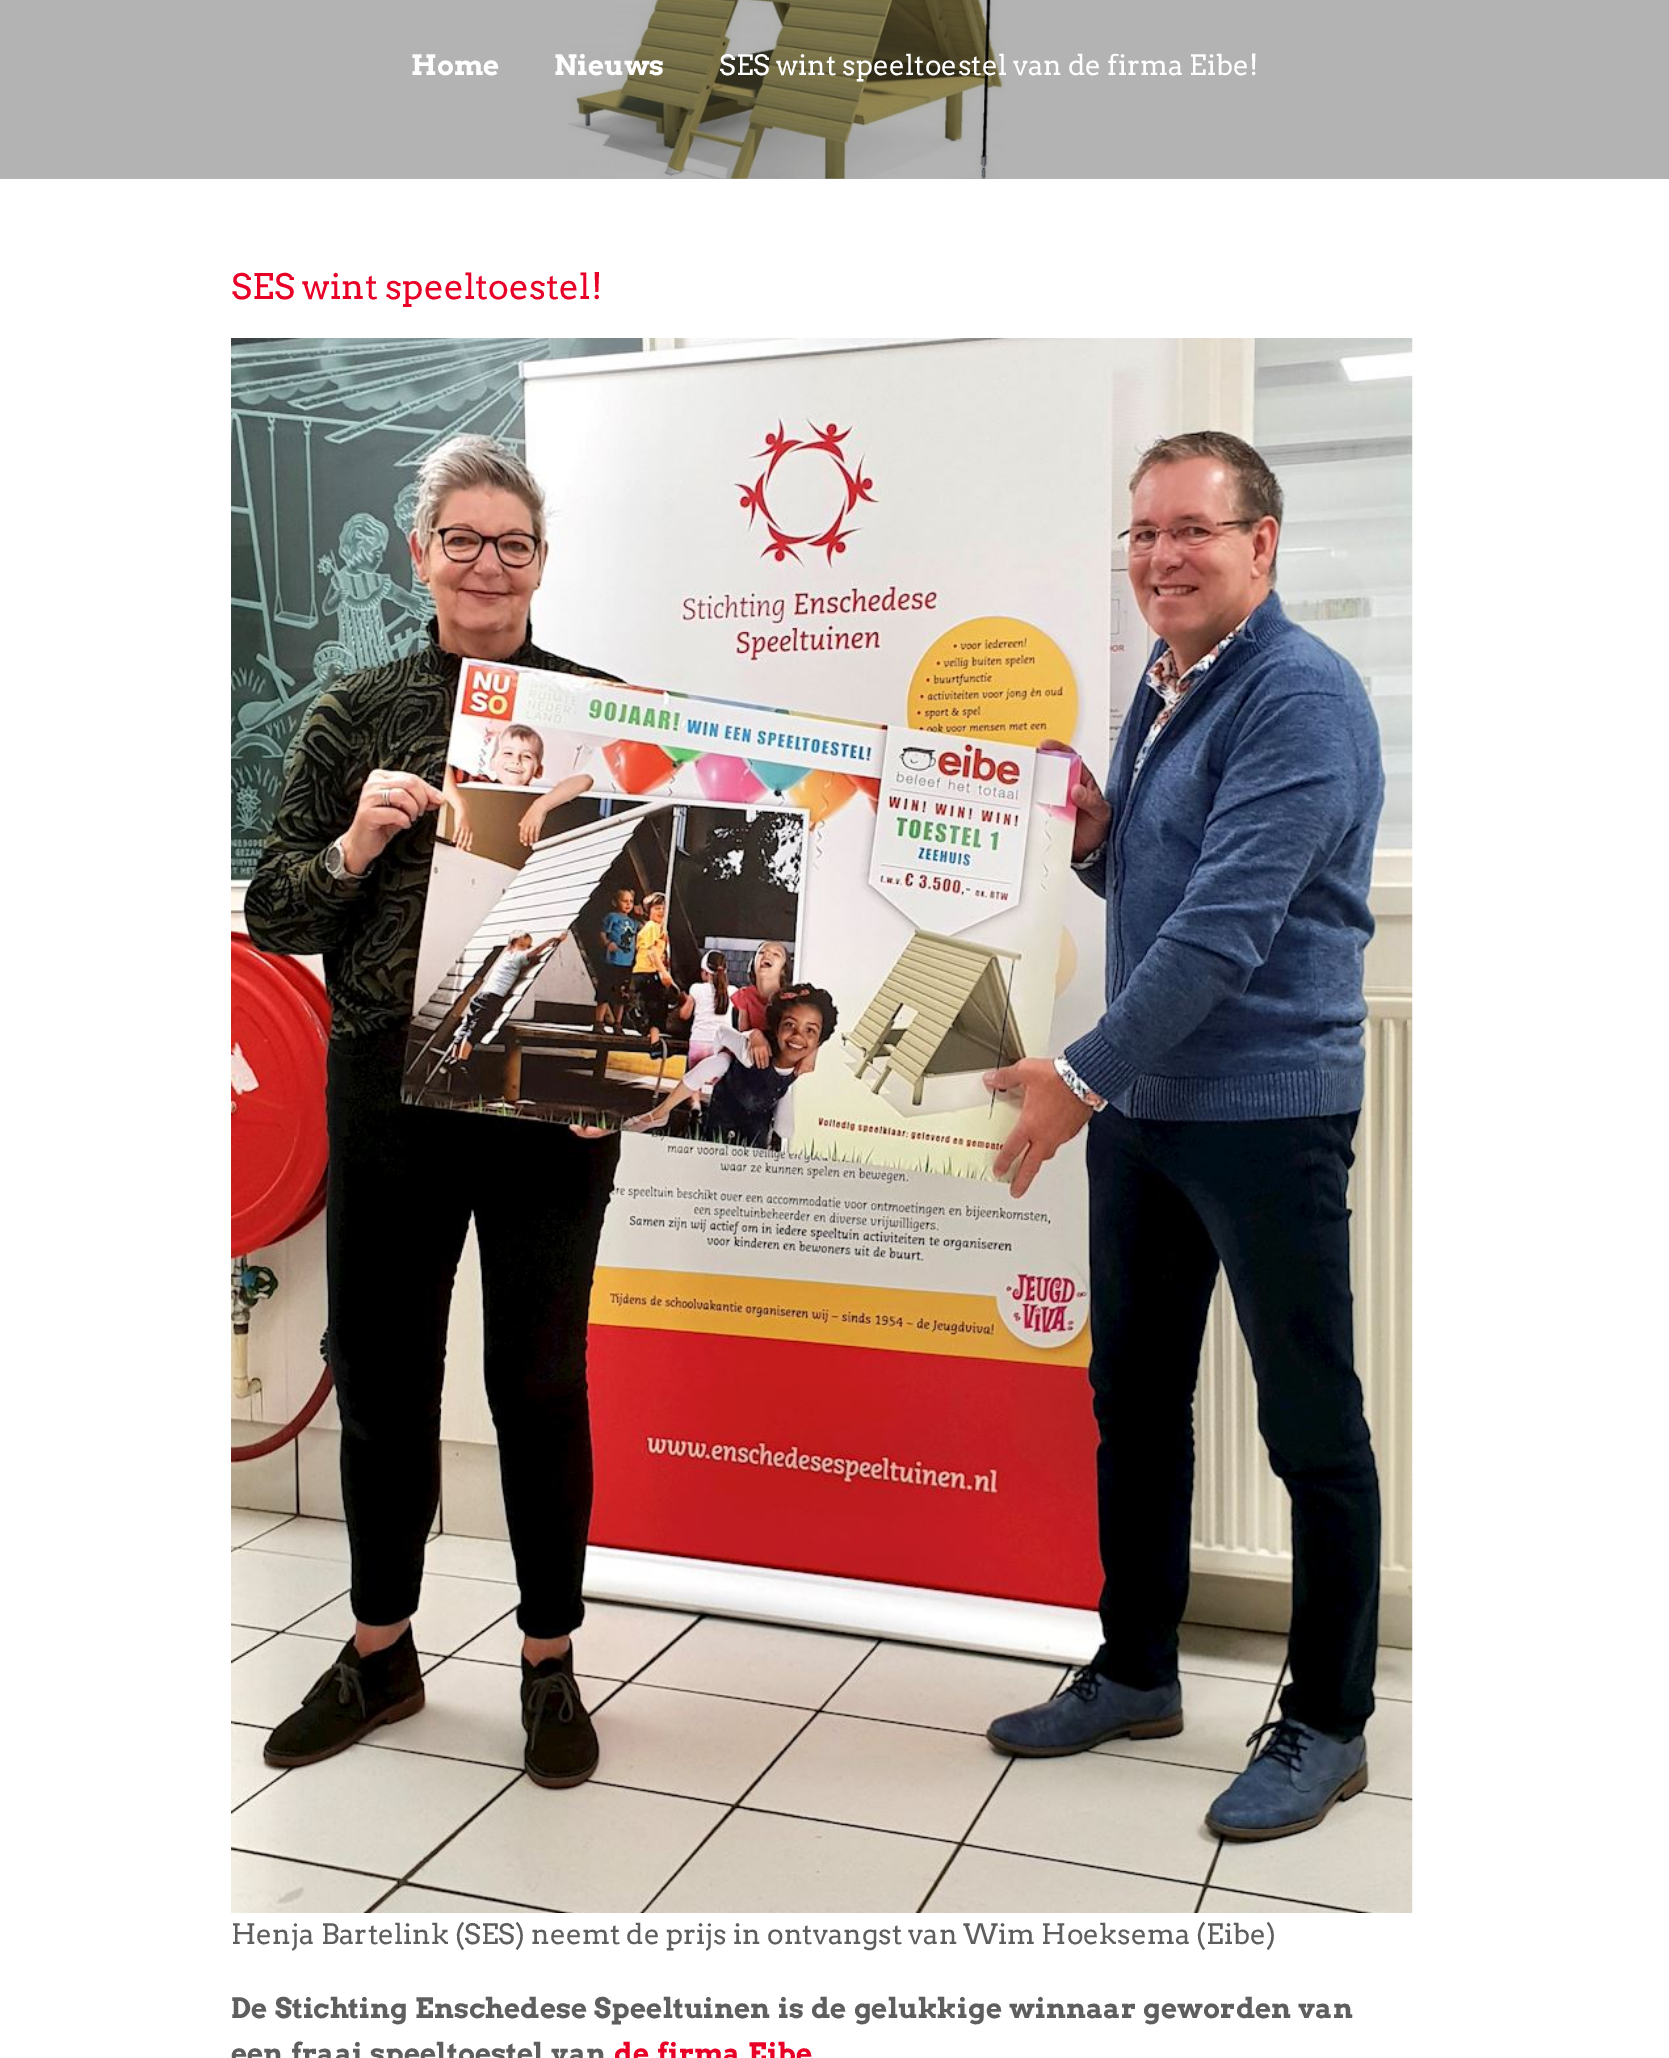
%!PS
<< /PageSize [1669 2058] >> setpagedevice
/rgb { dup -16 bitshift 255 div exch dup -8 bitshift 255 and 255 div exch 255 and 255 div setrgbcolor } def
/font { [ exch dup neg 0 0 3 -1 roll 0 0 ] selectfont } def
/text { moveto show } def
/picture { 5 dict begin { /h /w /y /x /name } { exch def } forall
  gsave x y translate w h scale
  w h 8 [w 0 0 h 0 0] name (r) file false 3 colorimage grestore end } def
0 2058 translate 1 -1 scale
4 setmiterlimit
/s1 { /Arvo-Bold 28 font 16#FFFFFF rgb } def
/s2 { /Arvo-Regular 28 font 16#FFFFFF rgb } def
/s3 { /Arvo-Regular 35 font 16#E90027 rgb } def
/s4 { /Arvo-Regular 28 font 16#5E5E5E rgb } def
16#FFFFFF rgb
0 0 1669 2058 rectfill
16#B3B3B3 rgb
0 0 1669 179 rectfill
(pic1.raw) 568 0 437 179 picture
s1
(Home) 411 75 text
(Nieuws) 554 75 text
s2
(SES wint speeltoestel van de firma Eibe!) 719 75 text
s3
(SES wint speeltoestel!) 231 299 text
(pic2.raw) 231 338 1182 1575 picture
s4
(Henja Bartelink \(SES\) neemt de prijs in ontvangst van Wim Hoeksema \(Eibe\)) 231 1944 text
/Arvo-Bold 28 font
231 2018 moveto 1.75 0 32 (De Stichting Enschedese Speeltuinen is de gelukkige winnaar geworden van) widthshow
231 2063 moveto 1.75 0 32 (een fraai speeltoestel van) widthshow
16#E90027 rgb
614 2063 moveto 1.75 0 32 (de firma Eibe) widthshow
showpage
